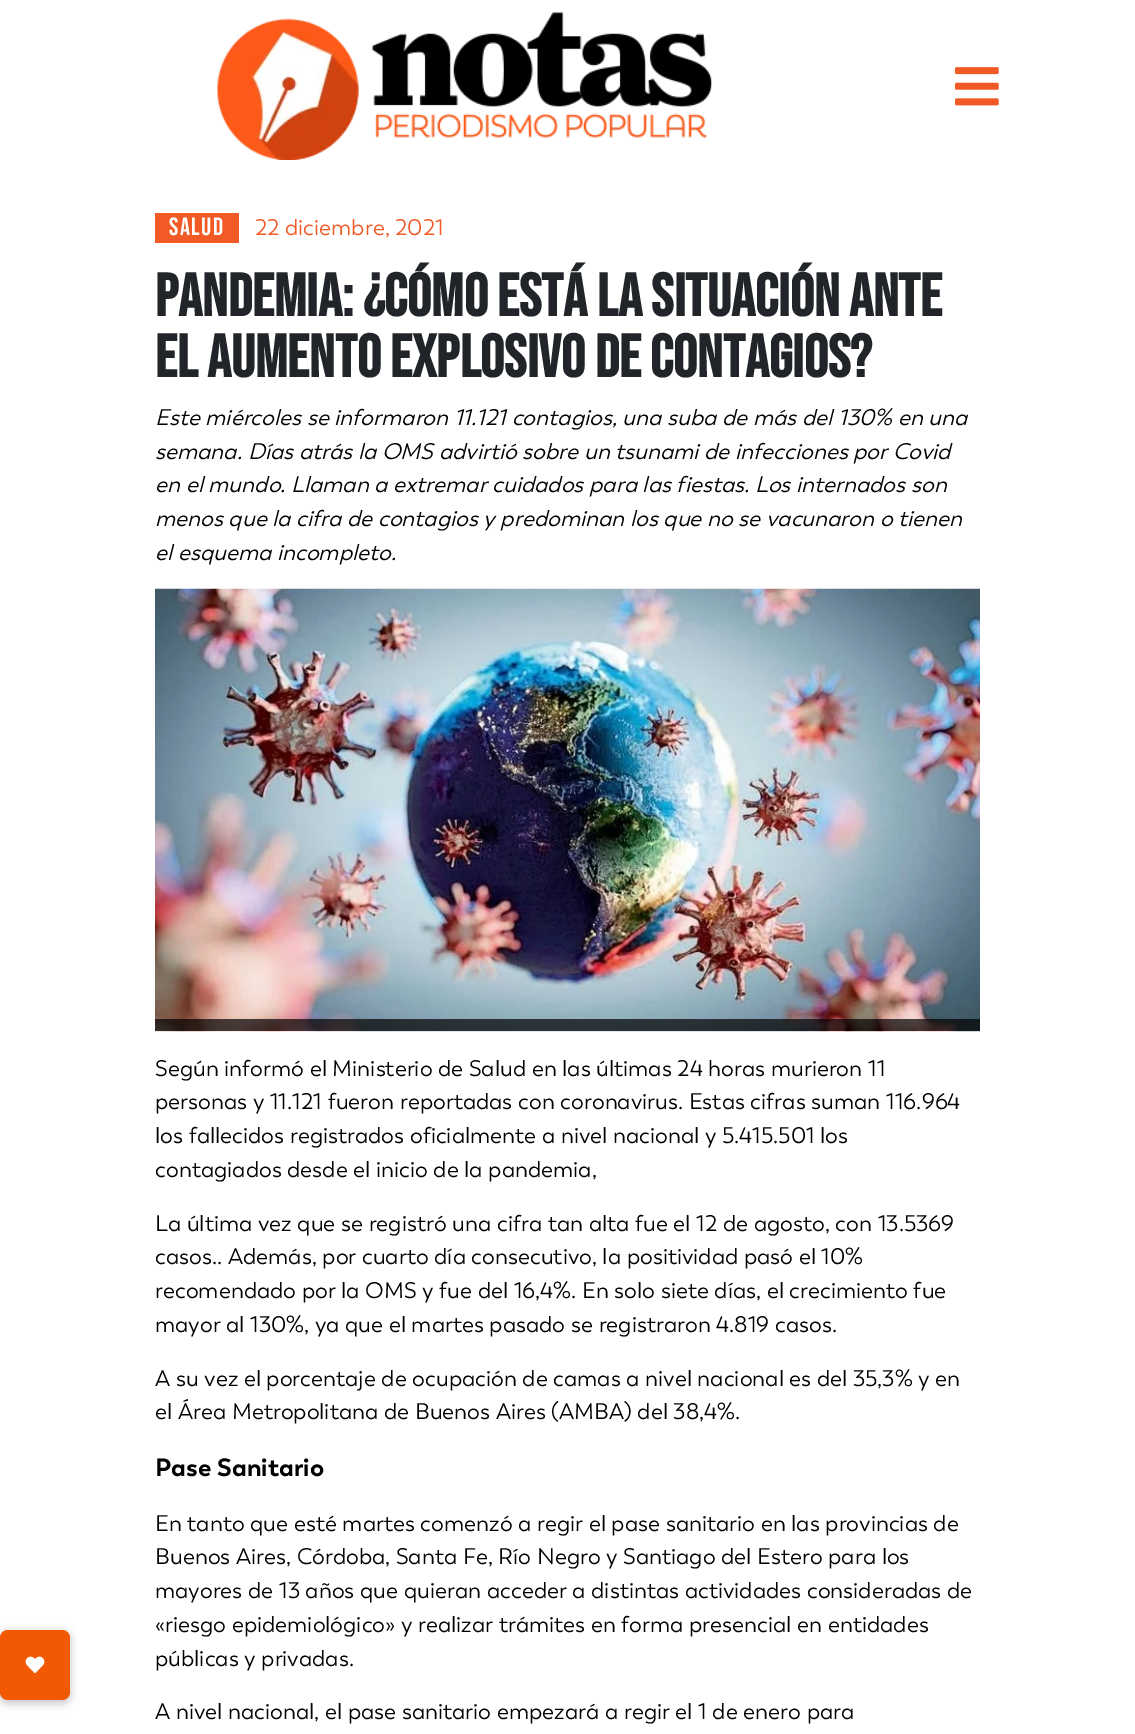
%!PS
<< /PageSize [1135 1734] /PageUsesTransparency true >> setpagedevice
/rgb { dup -16 bitshift 255 div exch dup -8 bitshift 255 and 255 div exch 255 and 255 div setrgbcolor } def
/font { [ exch dup neg 0 0 3 -1 roll 0 0 ] selectfont } def
/text { moveto show } def
/alpha { dup .setfillconstantalpha .setstrokeconstantalpha } def
/roundrect { 5 dict begin { /r /h /w /y /x } { exch def } forall
  x r add y moveto x w add y 2 copy h add r arct x w add y h add x 1 index r arct
  x y h add x y r arct x y 2 copy exch w add exch r arct closepath end } def
/shadow { 12 dict begin { /a /b /q /h /w /y /x } { exch def } forall gsave /was 0 def
  9 -2 -9 { dup b mul 4 div /e exch def 1 sub .425 mul 2.718 exch exp 1 add a .99 .min exch div /now exch def
    1 1 now sub 1 was sub div sub alpha /was now def
    w h .min e 2 mul add 0 gt { x e sub y e sub w e 2 mul add h e 2 mul add
      q e add b .6 mul add w h .min 2 div e add .min 0 .max roundrect fill } if } for grestore end } def
/picture { 5 dict begin { /h /w /y /x /name } { exch def } forall
  gsave x y translate w h scale
  w h 8 [w 0 0 h 0 0] name (r) file false 3 colorimage grestore end } def
0 .pushpdf14devicefilter
0 1734 translate 1 -1 scale
4 setmiterlimit
/s1 { /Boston-Regular 22.5 font 16#F15A24 rgb } def
/s2 { /BebasNeue-Bold 60 font 16#212529 rgb } def
/s3 { /Boston-Italic 22.5 font 16#000000 rgb } def
/s4 { /Boston-Regular 22.5 font 16#000000 rgb } def
/s5 { /Boston-Bold 25 font 16#000000 rgb } def
16#FFFFFF rgb
0 0 1135 1734 rectfill
16#000000 rgb
-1 1631 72 73 9 4 0.2 shadow
16#F15902 rgb
0 1630 70 70 8 roundrect fill
(pic1.raw) 25 1656 20 17 picture
(pic2.raw) 217 12 495 148 picture
(pic3.raw) 955 67 44 39 picture
16#F15A24 rgb
155 213 84 30 rectfill
/BebasNeue-Regular 25 font
16#FFFFFF rgb
169 235 moveto 1.5 0 (SALUD) ashow
s1
(22 diciembre, 2021) 255 235 text
s2
(Pandemia: ¿cómo está la situación ante) 155 316 text
(el aumento explosivo de contagios?) 155 377 text
s3
(Este miércoles se informaron 11.121 contagios, una suba de más del 130% en una) 155 425 text
(semana. Días atrás la OMS advirtió sobre un tsunami de infecciones por Covid) 155 459 text
(en el mundo. Llaman a extremar cuidados para las fiestas. Los internados son) 155 492 text
(menos que la cifra de contagios y predominan los que no se vacunaron o tienen) 155 526 text
(el esquema incompleto.) 155 560 text
(pic4.raw) 155 588 825 444 picture
0.7 alpha
155 1019 825 12 rectfill
1 alpha
s4
(Según informó el Ministerio de Salud en las últimas 24 horas murieron 11) 155 1076 text
(personas y 11.121 fueron reportadas con coronavirus. Estas cifras suman 116.964) 155 1109 text
(los fallecidos registrados oficialmente a nivel nacional y 5.415.501 los) 155 1143 text
(contagiados desde el inicio de la pandemia,) 155 1177 text
(La última vez que se registró una cifra tan alta fue el 12 de agosto, con 13.5369) 155 1231 text
(casos.. Además, por cuarto día consecutivo, la positividad pasó el 10%) 155 1264 text
(recomendado por la OMS y fue del 16,4%. En solo siete días, el crecimiento fue) 155 1298 text
(mayor al 130%, ya que el martes pasado se registraron 4.819 casos.) 155 1332 text
(A su vez el porcentaje de ocupación de camas a nivel nacional es del 35,3% y en) 155 1386 text
(el Área Metropolitana de Buenos Aires \(AMBA\) del 38,4%.) 155 1419 text
s5
(Pase Sanitario) 155 1476 text
s4
(En tanto que esté martes comenzó a regir el pase sanitario en las provincias de) 155 1531 text
(Buenos Aires, Córdoba, Santa Fe, Río Negro y Santiago del Estero para los) 155 1564 text
(mayores de 13 años que quieran acceder a distintas actividades consideradas de) 155 1598 text
(«riesgo epidemiológico» y realizar trámites en forma presencial en entidades) 155 1632 text
(públicas y privadas.) 155 1666 text
(A nivel nacional, el pase sanitario empezará a regir el 1 de enero para) 155 1719 text
.poppdf14devicefilter showpage
